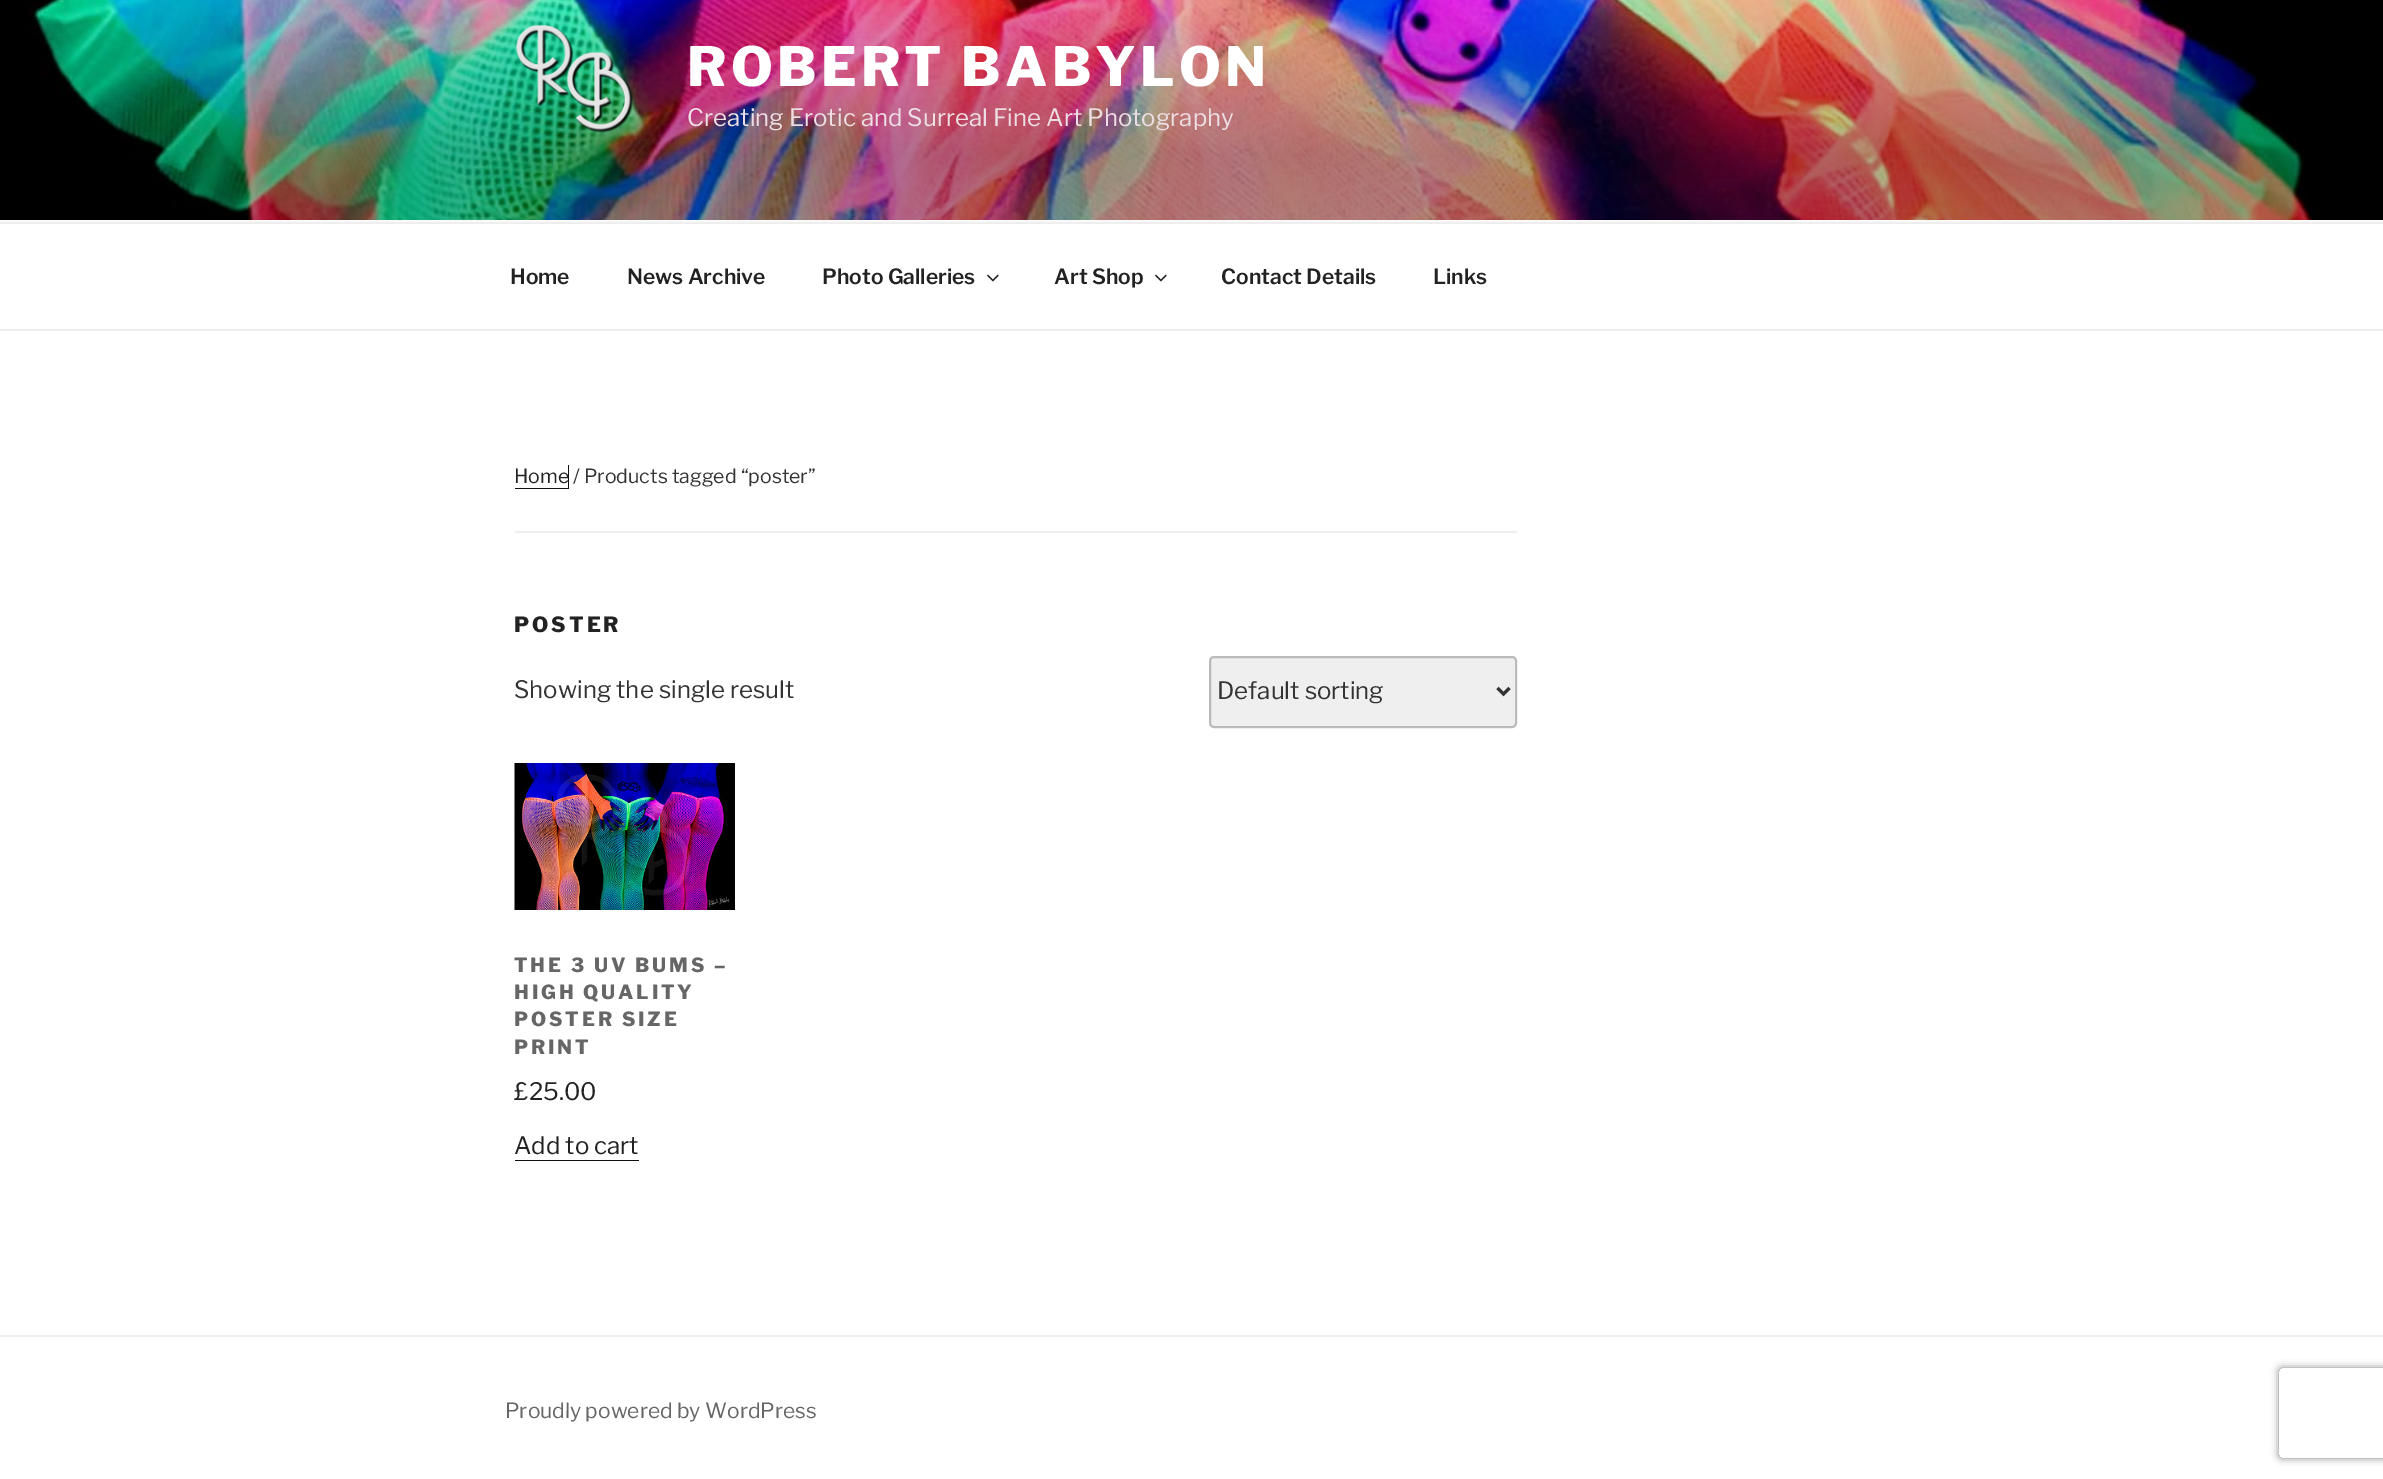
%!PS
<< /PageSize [2383 1479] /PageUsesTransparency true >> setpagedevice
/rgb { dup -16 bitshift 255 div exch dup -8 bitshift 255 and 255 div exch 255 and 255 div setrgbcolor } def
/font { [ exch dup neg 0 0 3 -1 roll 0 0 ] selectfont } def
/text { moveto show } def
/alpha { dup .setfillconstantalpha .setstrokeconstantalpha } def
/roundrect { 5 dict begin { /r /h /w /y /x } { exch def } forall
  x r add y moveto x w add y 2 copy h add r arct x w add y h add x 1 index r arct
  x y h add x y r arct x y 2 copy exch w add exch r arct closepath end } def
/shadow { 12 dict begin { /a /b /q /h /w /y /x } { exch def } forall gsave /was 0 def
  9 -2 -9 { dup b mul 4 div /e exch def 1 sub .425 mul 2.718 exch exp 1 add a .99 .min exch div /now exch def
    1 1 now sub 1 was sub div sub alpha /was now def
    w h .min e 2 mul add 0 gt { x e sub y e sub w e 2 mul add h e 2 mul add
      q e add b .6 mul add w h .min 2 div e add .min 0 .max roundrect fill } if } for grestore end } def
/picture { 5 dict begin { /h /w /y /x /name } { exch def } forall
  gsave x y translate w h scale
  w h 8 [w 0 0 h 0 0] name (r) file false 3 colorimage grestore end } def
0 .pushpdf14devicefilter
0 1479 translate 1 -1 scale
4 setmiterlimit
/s1 { /LibreFranklin-Regular 24 font 16#EDDEE3 rgb } def
/s2 { /LibreFranklin-SemiBold 21 font 16#222222 rgb } def
/s3 { /LibreFranklin-Regular 19.5 font 16#222222 rgb } def
/s4 { /LibreFranklin-Regular 19.5 font 16#333333 rgb } def
/s5 { /LibreFranklin-Regular 24 font 16#333333 rgb } def
/s6 { /LibreFranklin-Regular 24 font 16#222222 rgb } def
/s7 { /LibreFranklin-Regular 21 font 16#666666 rgb } def
16#FFFFFF rgb
0 0 2383 1479 rectfill
16#FAFAFA rgb
0 220 2383 2 rectfill
(pic1.raw) 0 0 2383 220 picture
(pic2.raw) 516 24 117 109 picture
/LibreFranklin-ExtraBold 54 font
16#FFFFFF rgb
687 86 moveto 4.25 0 (ROBERT BABYLON) ashow
s1
(Creating Erotic and Surreal Fine Art Photography) 687 126 text
16#EEEEEE rgb
0 222 2383 2 rectfill
0 329 2383 2 rectfill
s2
(Home) 510 284 text
(News Archive) 627 284 text
(Photo Galleries) 822 284 text
(pic3.raw) 987 274 12 8 picture
(Art Shop) 1054 284 text
(pic3.raw) 1155 274 12 8 picture
(Contact Details) 1221 284 text
(Links) 1433 284 text
16#EEEEEE rgb
515 531 1002 2 rectfill
16#0F0F0F rgb
515 488 moveto 515 489 lineto 569 489 lineto 569 465 lineto 568 465 lineto 568 488 lineto closepath fill
s3
(Home) 514 483 text
s4
(/ Products tagged “poster”) 573 483 text
/LibreFranklin-ExtraBold 21 font
16#222222 rgb
514 632 moveto 3 0 (POSTER) ashow
s5
(Showing the single result) 514 698 text
16#EFEFEF rgb
1210 657 306 70 4 roundrect gsave fill grestore
16#BBBBBB rgb
2 setlinewidth
stroke
16#333333 rgb
3 setlinewidth
1497.5 688 moveto 1503.5 694 lineto 1509.5 688 lineto stroke
(Default sorting) 1217 699 text
(pic4.raw) 514 763 221 147 picture
/LibreFranklin-ExtraBold 19.5 font
16#666666 rgb
514 972 moveto 2.9 0 (THE 3 UV BUMS –) ashow
514 999 moveto 2.9 0 (HIGH QUALITY) ashow
514 1026 moveto 2.9 0 (POSTER SIZE) ashow
514 1054 moveto 2.9 0 (PRINT) ashow
s6
(£25.00) 514 1100 text
(Add to cart) 514 1154 text
16#0F0F0F rgb
515 1160 124 1 rectfill
16#EEEEEE rgb
0 1335 2383 2 rectfill
s7
(Proudly powered by WordPress) 505 1418 text
gsave
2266 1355 moveto 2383 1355 lineto 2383 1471 lineto 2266 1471 lineto closepath 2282 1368 moveto 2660 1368 lineto 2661.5 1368 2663 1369.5 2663 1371 curveto 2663 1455 lineto 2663 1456.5 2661.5 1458 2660 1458 curveto 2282 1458 lineto 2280.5 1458 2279 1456.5 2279 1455 curveto 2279 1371 lineto 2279 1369.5 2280.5 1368 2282 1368 curveto closepath eoclip newpath
16#808080 rgb
2279 1368 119 90 3 4 1 shadow
grestore
.poppdf14devicefilter showpage
